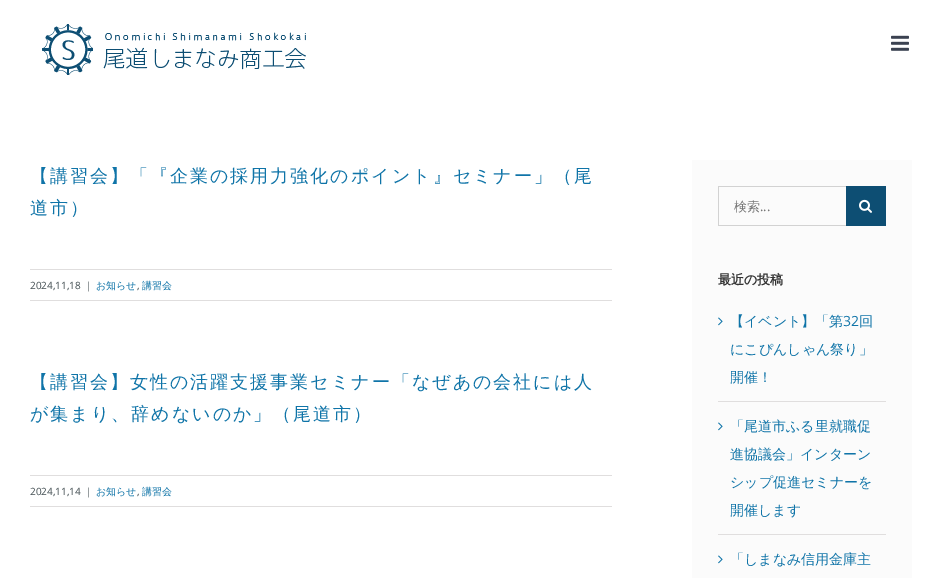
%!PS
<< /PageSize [942 578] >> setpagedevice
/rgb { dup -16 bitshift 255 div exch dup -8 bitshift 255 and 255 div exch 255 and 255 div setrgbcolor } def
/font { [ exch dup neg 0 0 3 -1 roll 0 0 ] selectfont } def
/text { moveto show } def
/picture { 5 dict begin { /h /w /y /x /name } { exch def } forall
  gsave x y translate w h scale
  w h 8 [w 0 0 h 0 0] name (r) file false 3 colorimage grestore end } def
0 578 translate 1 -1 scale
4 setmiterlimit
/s1 { /OpenSans-Regular 10 font 16#3F4B4F rgb } def
/s2 { /WenQuanYiZenHei-Medium 10 font 16#0F74A8 rgb } def
/s3 { /WenQuanYiZenHei-Medium 13 font 16#777777 rgb } def
/s4 { /OpenSans-Regular 13 font 16#777777 rgb } def
/s5 { /WenQuanYiZenHei-Bold 13 font 16#333333 rgb } def
/s6 { /WenQuanYiZenHei-Medium 14 font 16#0F74A8 rgb } def
/s7 { /OpenSans-Regular 14 font 16#0F74A8 rgb } def
16#FFFFFF rgb
0 0 942 578 rectfill
(pic1.raw) 42 24 264 51 picture
(pic2.raw) 891 35 18 16 picture
/WenQuanYiZenHei-Medium 18 font
16#0F74A8 rgb
30 182 moveto 2 0 (【講習会】「『企業の採用力強化のポイント』セミナー」（尾) ashow
30 214 moveto 2 0 (道市）) ashow
16#E0DEDE rgb
30 269 582 1 rectfill
30 300 582 1 rectfill
s1
(2024,11,18) 30 289 text
(|) 86 289 text
s2
(お知らせ) 96 289 text
s1
(,) 137 289 text
s2
(講習会) 142 289 text
/WenQuanYiZenHei-Medium 18 font
30 388 moveto 2 0 (【講習会】女性の活躍支援事業セミナー「なぜあの会社には人) ashow
30 420 moveto 2 0 (が集まり、辞めないのか」（尾道市）) ashow
16#E0DEDE rgb
30 475 582 1 rectfill
30 506 582 1 rectfill
s1
(2024,11,14) 30 495 text
(|) 86 495 text
s2
(お知らせ) 96 495 text
s1
(,) 137 495 text
s2
(講習会) 142 495 text
16#FBFBFB rgb
692 160 220 418 rectfill
16#D2D2D2 rgb
718 186 128 1 rectfill
718 225 128 1 rectfill
718 186 1 40 rectfill
s3
(検索) 734 211 text
s4
(...) 760 211 text
16#0D4E73 rgb
846 186 40 40 rectfill
(pic3.raw) 859 199 13 14 picture
s5
(最近の投稿) 718 284 text
16#E0DEDE rgb
718 401 168 1 rectfill
(pic4.raw) 718 317 5 9 picture
s6
(【イベント】「第) 730 326 text
s7
(32) 843 326 text
s6
(回) 859 326 text
(にこぴんしゃん祭り」) 730 354 text
(開催！) 730 382 text
16#E0DEDE rgb
718 534 168 1 rectfill
(pic4.raw) 718 422 5 9 picture
s6
(「尾道市ふる里就職促) 730 431 text
(進協議会」インターン) 730 459 text
(シップ促進セミナーを) 730 487 text
(開催します) 730 515 text
(pic4.raw) 718 555 5 9 picture
(「しまなみ信用金庫主) 730 564 text
showpage
